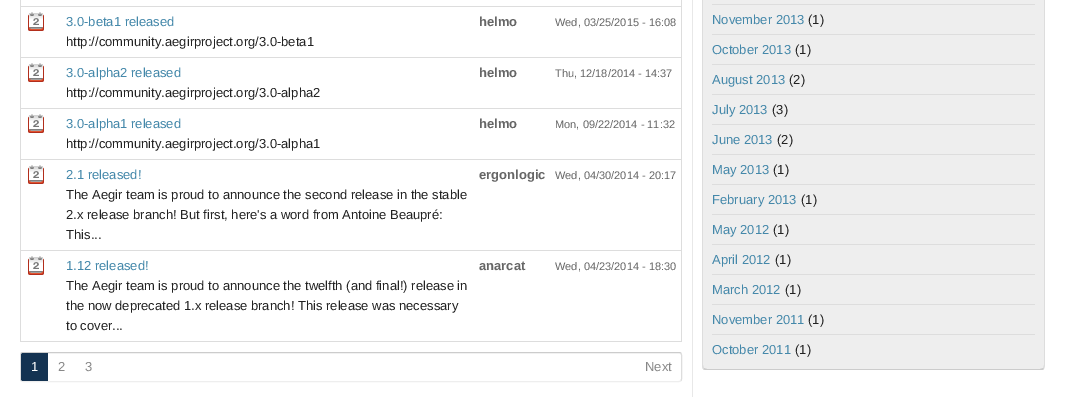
%!PS
<< /PageSize [1065 397] >> setpagedevice
/rgb { dup -16 bitshift 255 div exch dup -8 bitshift 255 and 255 div exch 255 and 255 div setrgbcolor } def
/font { [ exch dup neg 0 0 3 -1 roll 0 0 ] selectfont } def
/text { moveto show } def
/picture { 5 dict begin { /h /w /y /x /name } { exch def } forall
  gsave x y translate w h scale
  w h 8 [w 0 0 h 0 0] name (r) file false 3 colorimage grestore end } def
0 397 translate 1 -1 scale
4 setmiterlimit
/s1 { /LiberationSans-Regular 13 font 16#4488AA rgb } def
/s2 { /LiberationSans-Regular 13 font 16#222222 rgb } def
/s3 { /LiberationSans-Bold 13 font 16#666666 rgb } def
/s4 { /LiberationSans-Regular 11 font 16#666666 rgb } def
/s5 { /LiberationSans-Regular 13 font 16#FFFFFF rgb } def
/s6 { /LiberationSans-Regular 13 font 16#888888 rgb } def
16#FFFFFF rgb
0 0 1065 397 rectfill
16#E8E8E8 rgb
692 0 1 397 rectfill
16#DDDDDD rgb
681 0 1 342 rectfill
20 0 1 342 rectfill
(pic1.raw) 28 12 16 19 picture
s1
(3.0-beta1 released) 66 26 text
s2
(http://community.aegirproject.org/3.0-beta1) 66 46 text
s3
(helmo) 479 26 text
16#DDDDDD rgb
20 6 662 1 rectfill
s4
(Wed, 03/25/2015 - 16:08) 555 26 text
(pic1.raw) 28 63 16 19 picture
s1
(3.0-alpha2 released) 66 77 text
s2
(http://community.aegirproject.org/3.0-alpha2) 66 97 text
s3
(helmo) 479 77 text
16#DDDDDD rgb
20 57 662 1 rectfill
s4
(Thu, 12/18/2014 - 14:37) 555 77 text
(pic1.raw) 28 114 16 19 picture
s1
(3.0-alpha1 released) 66 128 text
s2
(http://community.aegirproject.org/3.0-alpha1) 66 148 text
s3
(helmo) 479 128 text
16#DDDDDD rgb
20 108 662 1 rectfill
s4
(Mon, 09/22/2014 - 11:32) 555 128 text
(pic1.raw) 28 165 16 19 picture
s1
(2.1 released!) 66 179 text
s2
(The Aegir team is proud to announce the second release in the stable) 66 199 text
(2.x release branch! But first, here's a word from Antoine Beaupré:) 66 219 text
(This...) 66 239 text
s3
(ergonlogic) 479 179 text
16#DDDDDD rgb
20 159 662 1 rectfill
s4
(Wed, 04/30/2014 - 20:17) 555 179 text
(pic1.raw) 28 256 16 19 picture
s1
(1.12 released!) 66 270 text
s2
(The Aegir team is proud to announce the twelfth \(and final!\) release in) 66 290 text
(the now deprecated 1.x release branch! This release was necessary) 66 310 text
(to cover...) 66 330 text
s3
(anarcat) 479 270 text
16#DDDDDD rgb
20 250 662 1 rectfill
20 341 662 1 rectfill
s4
(Wed, 04/23/2014 - 18:30) 555 270 text
16#CCCCCC rgb
21 353 moveto 23 352.5 lineto 679 352.5 lineto 681 353 lineto stroke
16#DDDDDD rgb
681 353 moveto 681 353.5 681.5 354.5 681.5 355 curveto 681.5 379 lineto 681.5 379.5 681 380.5 681 381 curveto stroke
16#EEEEEE rgb
681 381 moveto 679 381.5 lineto 23 381.5 lineto 21 381 lineto stroke
16#DDDDDD rgb
21 381 moveto 21 380.5 20.5 379.5 20.5 379 curveto 20.5 355 lineto 20.5 354.5 21 353.5 21 353 curveto stroke
16#143352 rgb
23 353 moveto 48 353 lineto 48 381 lineto 23 381 lineto 22 381 21 380 21 379 curveto 21 355 lineto 21 354 22 353 23 353 curveto closepath fill
s5
(1) 31 371 text
s6
(2) 58 371 text
(3) 85 371 text
(Next) 645 371 text
16#EEEEEE rgb
702 -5 moveto 1045 -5 lineto 1045 365 lineto 1045 368 1043 370 1040 370 curveto 707 370 lineto 704 370 702 368 702 365 curveto closepath fill
16#DDDDDD rgb
1045 -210 moveto 1044 -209 lineto 1044 365 lineto 1043 368 lineto 1044 369 lineto 1044 368 1045 366 1045 365 curveto closepath fill
16#CCCCCC rgb
707 370 moveto 1040 370 lineto 1042 370 1043 370 1044 369 curveto 1043 368 lineto 1040 369 lineto 707 369 lineto 704 368 lineto 703 369 lineto 704 370 706 370 707 370 curveto closepath fill
16#DDDDDD rgb
703 -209 moveto 702 -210 lineto 702 365 lineto 702 366 702 368 703 369 curveto 704 368 lineto 703 365 lineto closepath fill
712 4 323 1 rectfill
712 34 323 1 rectfill
s1
(November 2013) 712 24 text
s2
(\(1\)) 808 24 text
16#DDDDDD rgb
712 64 323 1 rectfill
s1
(October 2013) 712 54 text
s2
(\(1\)) 795 54 text
16#DDDDDD rgb
712 94 323 1 rectfill
s1
(August 2013) 712 84 text
s2
(\(2\)) 789 84 text
16#DDDDDD rgb
712 124 323 1 rectfill
s1
(July 2013) 712 114 text
s2
(\(3\)) 772 114 text
16#DDDDDD rgb
712 154 323 1 rectfill
s1
(June 2013) 712 144 text
s2
(\(2\)) 777 144 text
16#DDDDDD rgb
712 184 323 1 rectfill
s1
(May 2013) 712 174 text
s2
(\(1\)) 773 174 text
16#DDDDDD rgb
712 214 323 1 rectfill
s1
(February 2013) 712 204 text
s2
(\(1\)) 801 204 text
16#DDDDDD rgb
712 244 323 1 rectfill
s1
(May 2012) 712 234 text
s2
(\(1\)) 773 234 text
16#DDDDDD rgb
712 274 323 1 rectfill
s1
(April 2012) 712 264 text
s2
(\(1\)) 775 264 text
16#DDDDDD rgb
712 304 323 1 rectfill
s1
(March 2012) 712 294 text
s2
(\(1\)) 785 294 text
16#DDDDDD rgb
712 334 323 1 rectfill
s1
(November 2011) 712 324 text
s2
(\(1\)) 808 324 text
s1
(October 2011) 712 354 text
s2
(\(1\)) 795 354 text
showpage
